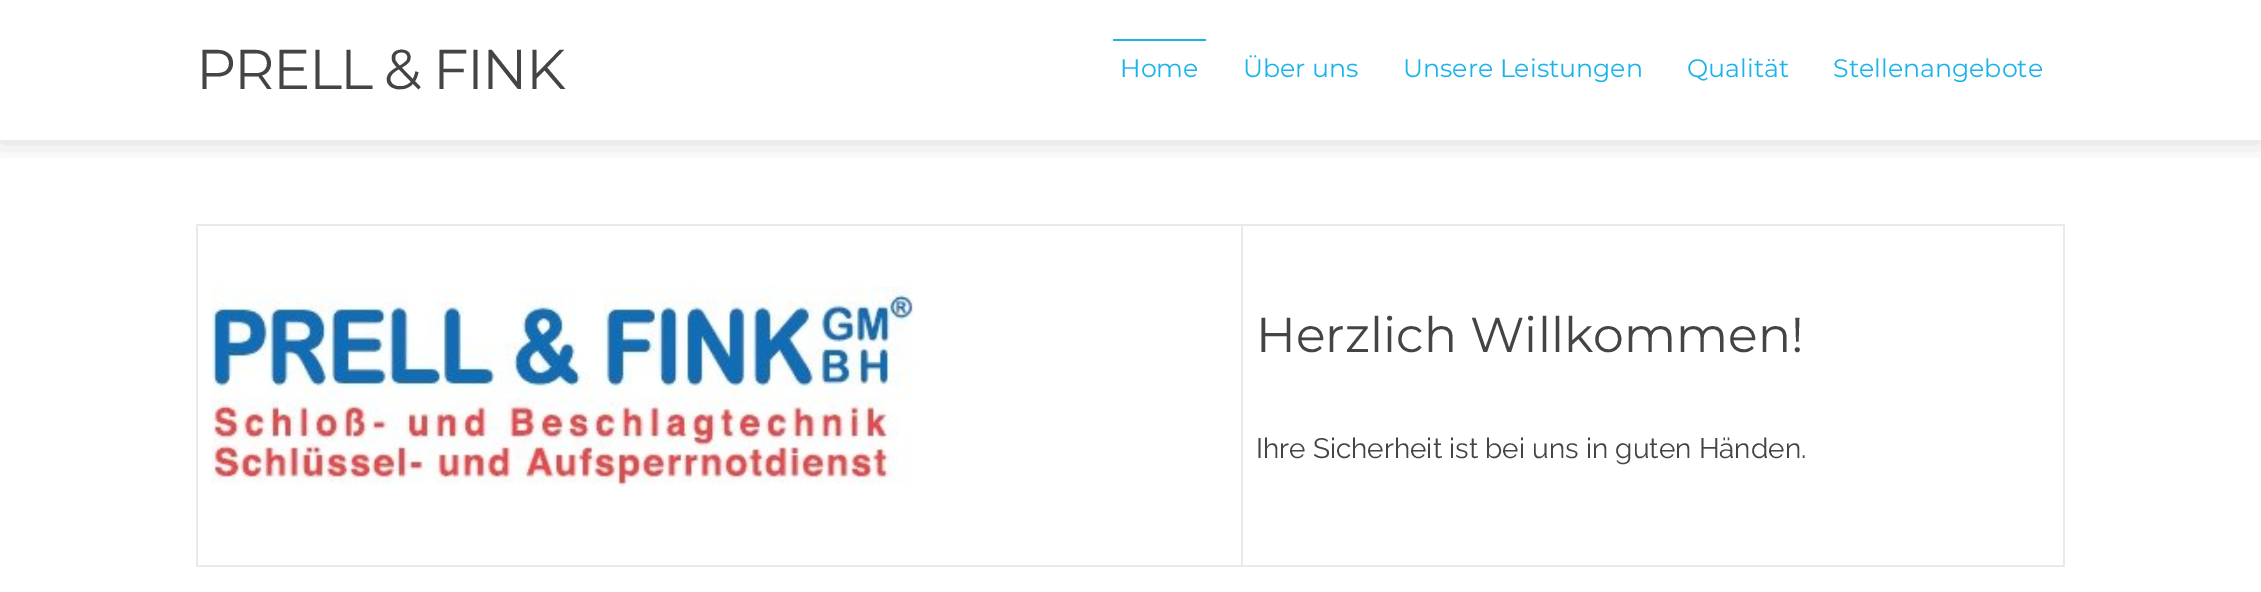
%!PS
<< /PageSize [2261 592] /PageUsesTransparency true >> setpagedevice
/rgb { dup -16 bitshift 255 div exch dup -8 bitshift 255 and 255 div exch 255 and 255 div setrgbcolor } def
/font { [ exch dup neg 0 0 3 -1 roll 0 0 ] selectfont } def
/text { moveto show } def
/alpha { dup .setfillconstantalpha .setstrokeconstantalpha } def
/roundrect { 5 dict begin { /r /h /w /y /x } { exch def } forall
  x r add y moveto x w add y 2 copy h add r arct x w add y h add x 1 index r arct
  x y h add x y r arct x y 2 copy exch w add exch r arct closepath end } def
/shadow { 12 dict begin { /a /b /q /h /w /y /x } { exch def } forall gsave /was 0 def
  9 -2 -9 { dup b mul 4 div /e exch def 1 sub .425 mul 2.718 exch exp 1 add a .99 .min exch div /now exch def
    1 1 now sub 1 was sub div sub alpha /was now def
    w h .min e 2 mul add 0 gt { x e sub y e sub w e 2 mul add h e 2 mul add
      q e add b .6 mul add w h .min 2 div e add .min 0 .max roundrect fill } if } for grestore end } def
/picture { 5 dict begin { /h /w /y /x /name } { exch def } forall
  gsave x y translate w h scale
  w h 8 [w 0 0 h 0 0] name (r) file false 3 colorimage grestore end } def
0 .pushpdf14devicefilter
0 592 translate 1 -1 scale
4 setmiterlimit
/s1 { /Montserrat-Thin 25.25 font 16#1BB3E9 rgb } def
/s2 { /Montserrat-Thin 49 font 16#444444 rgb } def
/s3 { /Raleway-Regular 28 font 16#444444 rgb } def
16#FFFFFF rgb
0 0 2261 592 rectfill
gsave
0 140 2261 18 rectclip
16#000000 rgb
0 2 2261 140 0 14 0.15 shadow
grestore
/Montserrat-Thin 56 font
16#444444 rgb
196 89 moveto -1.75 0 (PRELL & FINK) ashow
16#1BB3E9 rgb
1113 39 93 2 rectfill
s1
(Home) 1120 77 text
(Über uns) 1243 77 text
(Unsere Leistungen) 1403 77 text
(Qualität) 1687 77 text
(Stellenangebote) 1833 77 text
16#EAEAEA rgb
196 224 1869 2 rectfill
2063 224 2 343 rectfill
196 565 1869 2 rectfill
196 224 2 343 rectfill
(pic1.raw) 211 287 703 200 picture
1241 224 2 343 rectfill
s2
(Herzlich Willkommen!) 1256 352 text
s3
(Ihre Sicherheit ist bei uns in guten Händen.) 1256 458 text
.poppdf14devicefilter showpage
